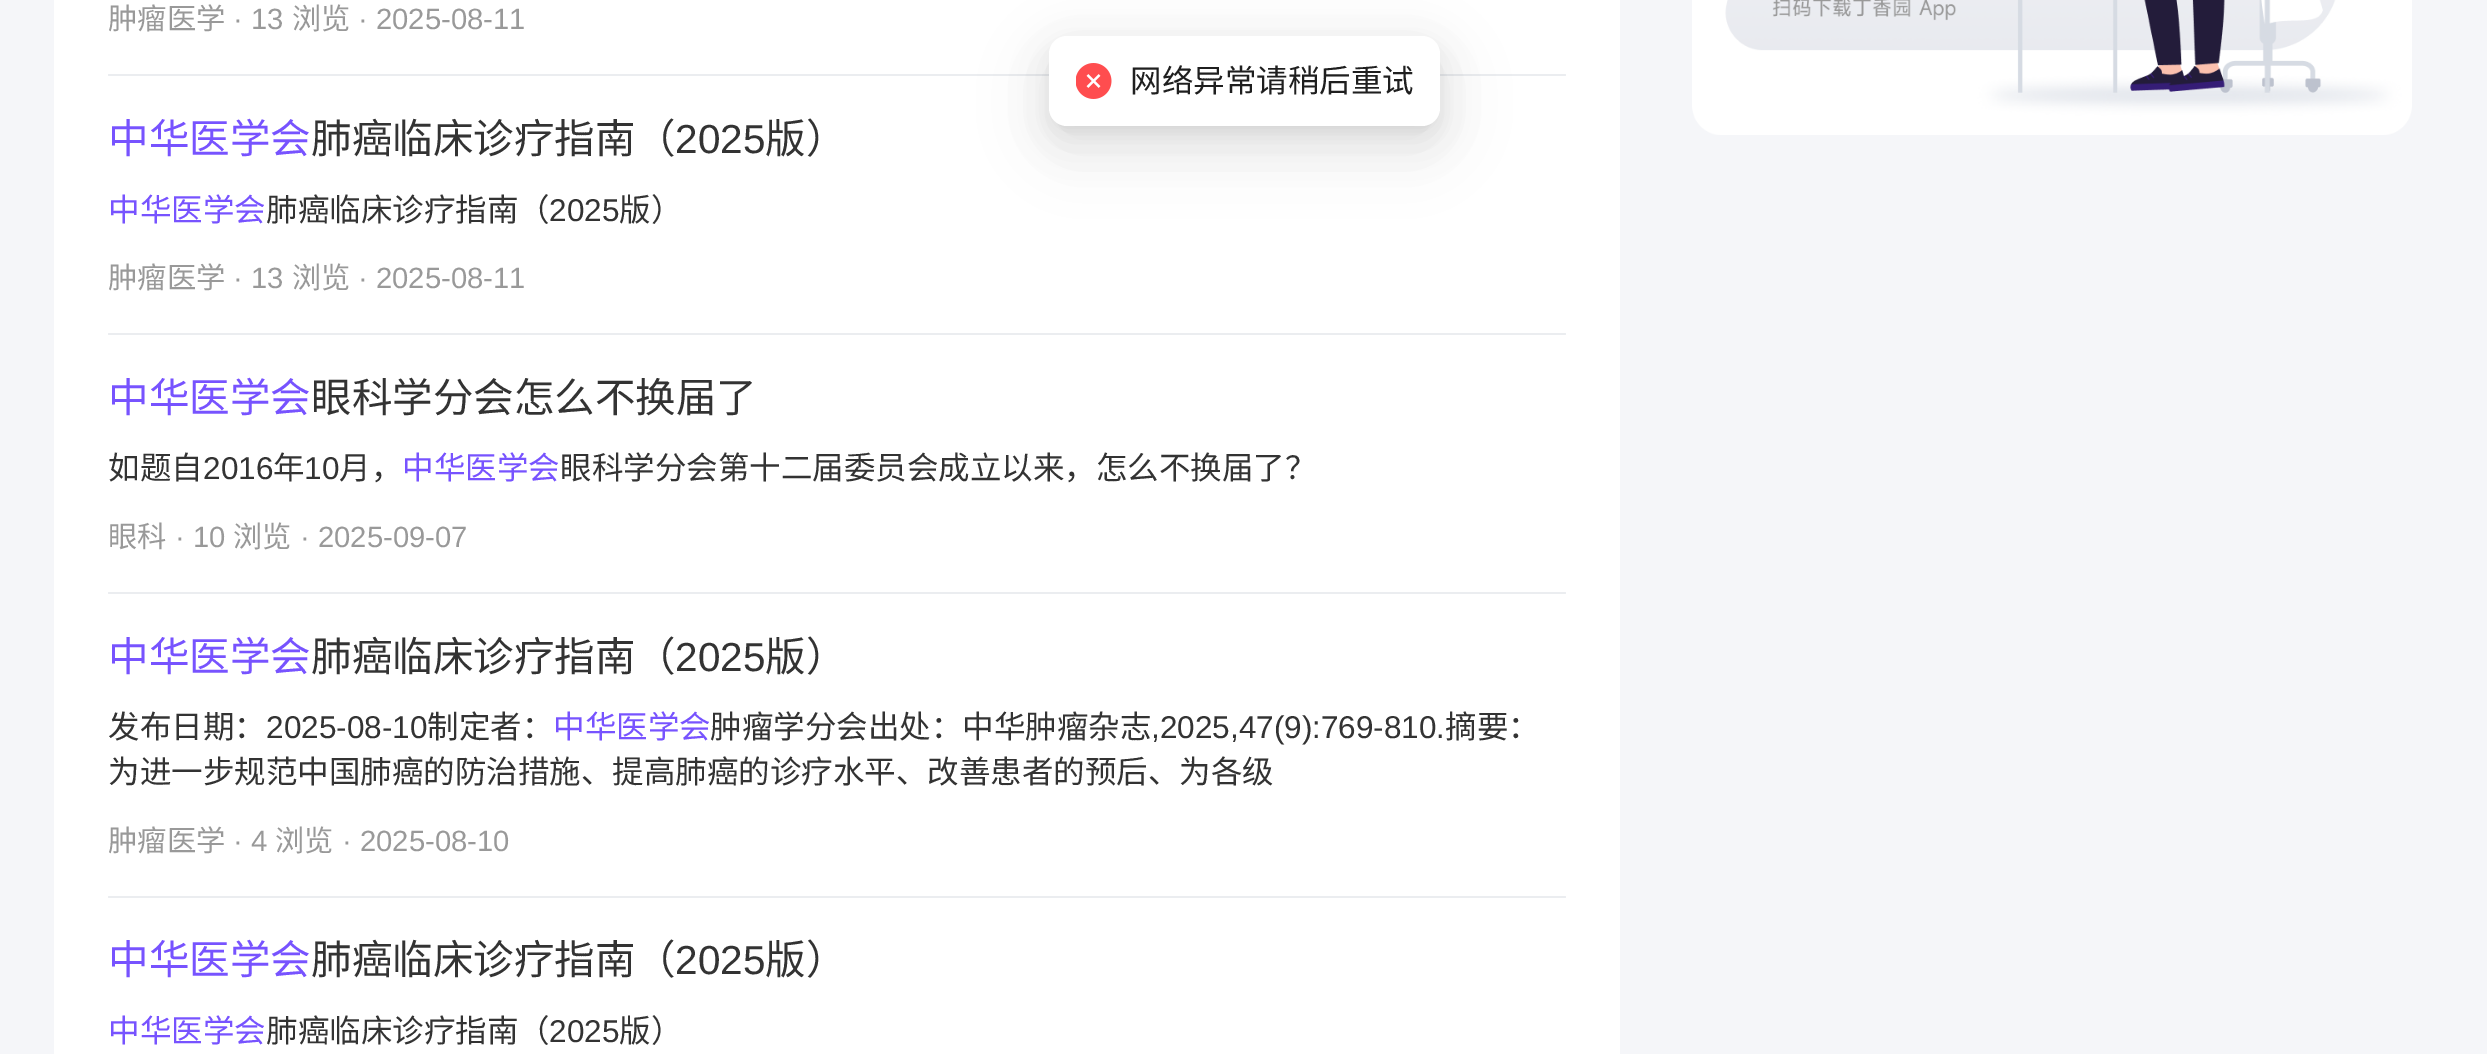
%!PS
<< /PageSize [2487 1054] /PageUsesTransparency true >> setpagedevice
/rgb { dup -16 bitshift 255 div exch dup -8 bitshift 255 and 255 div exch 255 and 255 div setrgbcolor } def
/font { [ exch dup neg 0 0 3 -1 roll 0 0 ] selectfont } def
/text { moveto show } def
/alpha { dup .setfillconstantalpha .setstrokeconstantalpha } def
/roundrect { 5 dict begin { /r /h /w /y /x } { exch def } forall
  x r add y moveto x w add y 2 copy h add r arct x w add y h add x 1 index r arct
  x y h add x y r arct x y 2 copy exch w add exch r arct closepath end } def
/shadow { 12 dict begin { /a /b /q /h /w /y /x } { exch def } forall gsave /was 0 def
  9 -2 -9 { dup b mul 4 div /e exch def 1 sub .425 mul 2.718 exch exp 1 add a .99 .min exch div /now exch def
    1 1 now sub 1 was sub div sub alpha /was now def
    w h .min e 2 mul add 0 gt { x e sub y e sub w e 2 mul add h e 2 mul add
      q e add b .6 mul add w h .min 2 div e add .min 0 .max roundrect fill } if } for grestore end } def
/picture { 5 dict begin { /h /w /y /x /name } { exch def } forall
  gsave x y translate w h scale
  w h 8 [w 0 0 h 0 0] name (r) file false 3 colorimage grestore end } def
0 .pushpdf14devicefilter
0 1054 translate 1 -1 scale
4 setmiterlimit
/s1 { /NotoSansCJKSC-Regular 29.25 font 16#999999 rgb } def
/s2 { /LiberationSans-Regular 29.25 font 16#999999 rgb } def
/s3 { /NotoSansCJKSC-Regular 40.5 font 16#7753FF rgb } def
/s4 { /NotoSansCJKSC-Regular 40.5 font 16#333333 rgb } def
/s5 { /LiberationSans-Regular 40.5 font 16#333333 rgb } def
/s6 { /NotoSansCJKSC-Regular 31.5 font 16#7753FF rgb } def
/s7 { /NotoSansCJKSC-Regular 31.5 font 16#333333 rgb } def
/s8 { /LiberationSans-Regular 31.5 font 16#333333 rgb } def
/s9 { /NotoSansCJKSC-Regular 31.5 font 16#1F1F1F rgb } def
16#F5F6F9 rgb
0 0 2487 1054 rectfill
16#FFFFFF rgb
54 0 1566 1054 rectfill
s1
(肿瘤医学) 108 29 text
s2
(· 13) 233 29 text
s1
(浏览) 292 29 text
s2
(· 2025-08-11) 358 29 text
16#EBEDF0 rgb
108 74 1458 2 1 roundrect fill
s3
(中华医学会) 108 153 text
s4
(肺癌临床诊疗指南（) 311 153 text
s5
(2025) 675 153 text
s4
(版）) 765 153 text
s6
(中华医学会) 108 221 text
s7
(肺癌临床诊疗指南（) 266 221 text
s8
(2025) 549 221 text
s7
(版）) 619 221 text
s1
(肿瘤医学) 108 288 text
s2
(· 13) 233 288 text
s1
(浏览) 292 288 text
s2
(· 2025-08-11) 358 288 text
16#EBEDF0 rgb
108 333 1458 2 1 roundrect fill
s3
(中华医学会) 108 412 text
s4
(眼科学分会怎么不换届了) 311 412 text
s7
(如题自) 108 479 text
s8
(2016) 203 479 text
s7
(年) 273 479 text
s8
(10) 304 479 text
s7
(月，) 339 479 text
s6
(中华医学会) 402 479 text
s7
(眼科学分会第十二届委员会成立以来，怎么不换届了？) 560 479 text
s1
(眼科) 108 547 text
s2
(· 10) 175 547 text
s1
(浏览) 233 547 text
s2
(· 2025-09-07) 300 547 text
16#EBEDF0 rgb
108 592 1458 2 1 roundrect fill
s3
(中华医学会) 108 671 text
s4
(肺癌临床诊疗指南（) 311 671 text
s5
(2025) 675 671 text
s4
(版）) 765 671 text
s7
(发布日期：) 108 738 text
s8
(2025-08-10) 266 738 text
s7
(制定者：) 427 738 text
s6
(中华医学会) 553 738 text
s7
(肿瘤学分会出处：中华肿瘤杂志) 710 738 text
s8
(,2025,47\(9\):769-810.) 1151 738 text
s7
(摘要：) 1445 738 text
(为进一步规范中国肺癌的防治措施、提高肺癌的诊疗水平、改善患者的预后、为各级) 108 783 text
s1
(肿瘤医学) 108 851 text
s2
(· 4) 233 851 text
s1
(浏览) 275 851 text
s2
(· 2025-08-10) 342 851 text
16#EBEDF0 rgb
108 896 1458 2 1 roundrect fill
s3
(中华医学会) 108 974 text
s4
(肺癌临床诊疗指南（) 311 974 text
s5
(2025) 675 974 text
s4
(版）) 765 974 text
s6
(中华医学会) 108 1042 text
s7
(肺癌临床诊疗指南（) 266 1042 text
s8
(2025) 549 1042 text
s7
(版）) 619 1042 text
(pic1.raw) 1692 0 720 135 picture
16#000000 rgb
1031 38 427 126 36 31.5 0.05 shadow
1058 52 373 72 9 7 0.12 shadow
1049 50 391 90 18 18 0.08 shadow
16#FFFFFF rgb
1049 36 391 90 18 roundrect fill
(pic2.raw) 1076 63 36 36 picture
s9
(网络异常请稍后重试) 1130 92 text
.poppdf14devicefilter showpage
